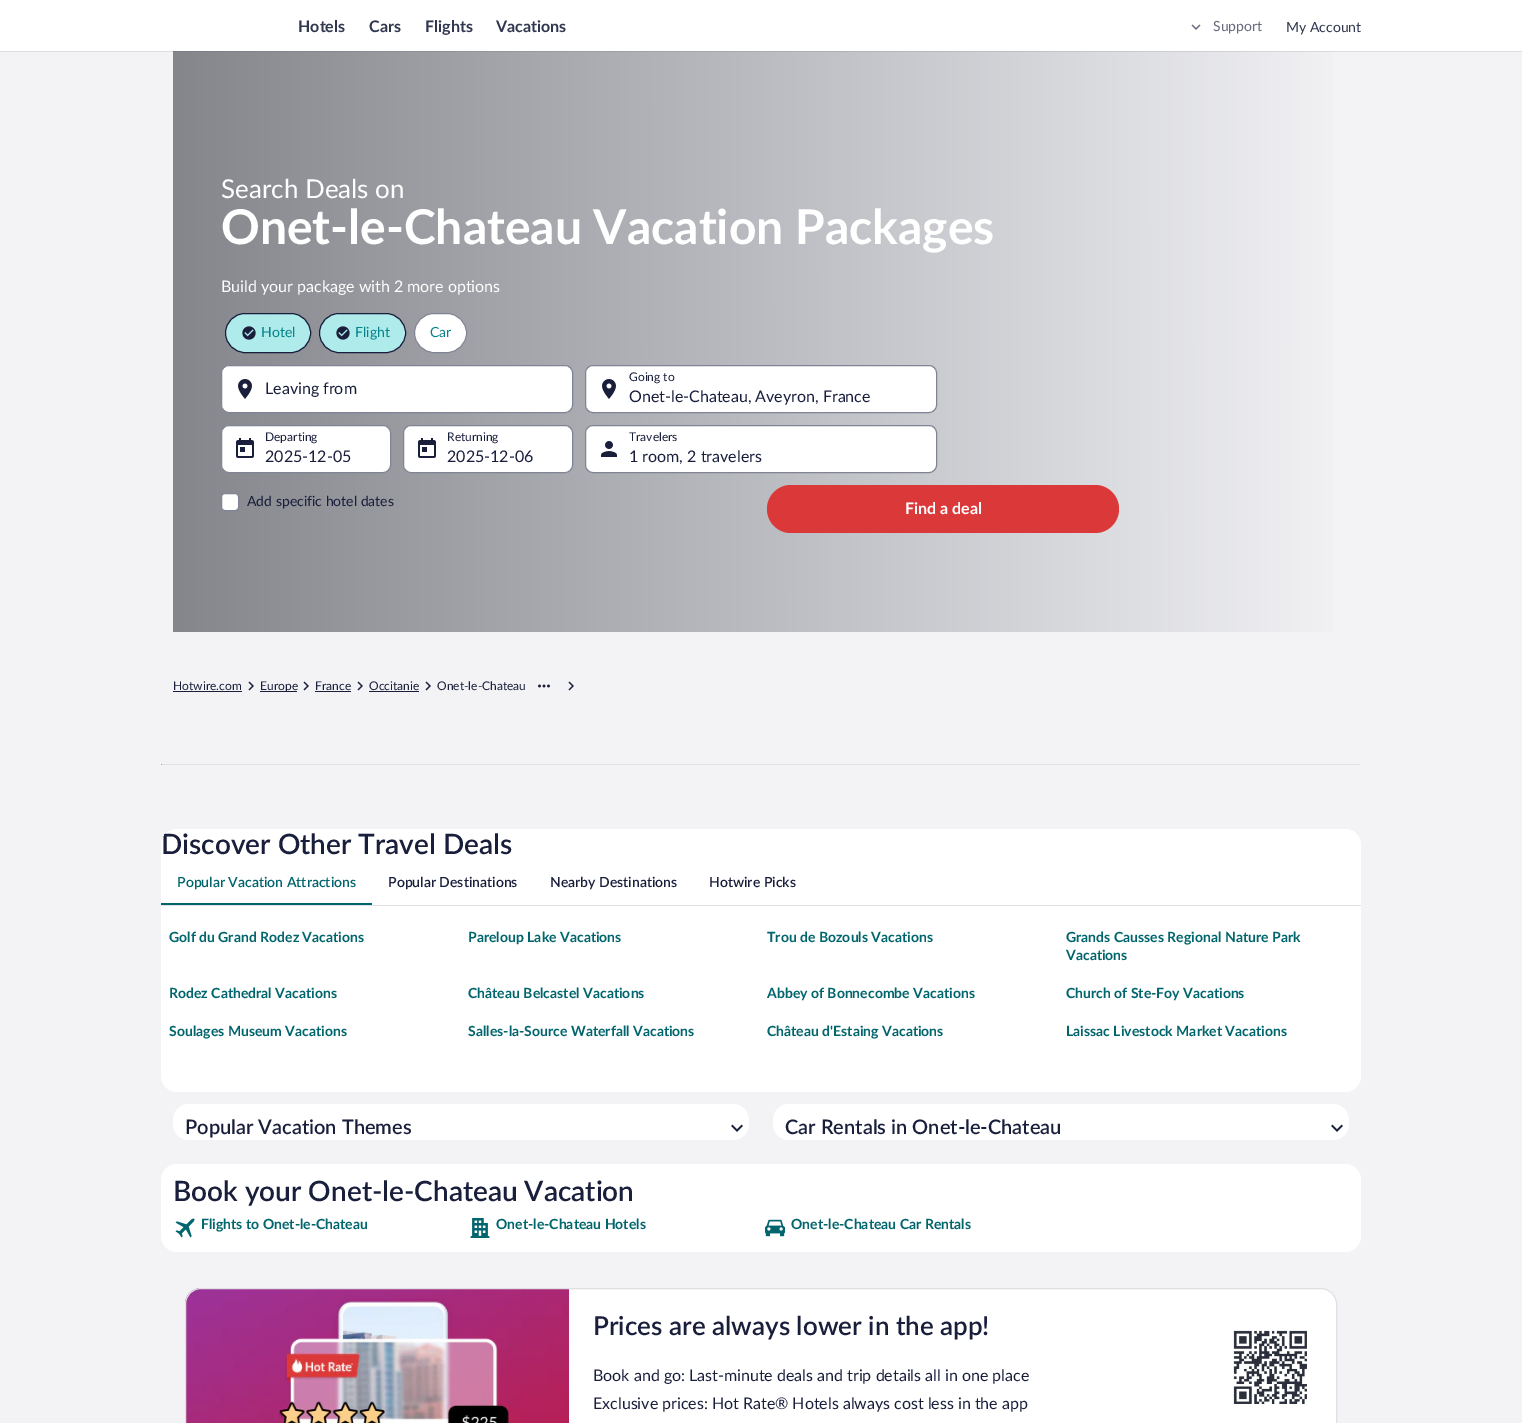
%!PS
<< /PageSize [1522 1423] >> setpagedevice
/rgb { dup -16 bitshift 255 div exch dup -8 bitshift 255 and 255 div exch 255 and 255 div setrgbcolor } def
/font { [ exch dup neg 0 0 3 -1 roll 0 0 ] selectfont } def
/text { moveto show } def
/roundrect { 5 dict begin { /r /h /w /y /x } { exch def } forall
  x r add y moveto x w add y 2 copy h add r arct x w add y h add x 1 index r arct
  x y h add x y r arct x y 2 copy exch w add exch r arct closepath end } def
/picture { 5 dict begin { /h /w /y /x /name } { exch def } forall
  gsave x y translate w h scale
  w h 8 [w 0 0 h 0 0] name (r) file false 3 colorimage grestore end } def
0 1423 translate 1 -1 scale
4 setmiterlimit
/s1 { /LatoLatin-Bold 16 font 16#31374F rgb } def
/s2 { /LatoLatin-Regular 14 font 16#676A7D rgb } def
/s3 { /LatoLatin-Regular 14 font 16#31374F rgb } def
/s4 { /LatoLatin-Regular 26 font 16#FFFFFF rgb } def
/s5 { /LatoLatin-Bold 48 font 16#FFFFFF rgb } def
/s6 { /LatoLatin-Regular 16 font 16#FFFFFF rgb } def
/s7 { /LatoLatin-Regular 14 font 16#038489 rgb } def
/s8 { /LatoLatin-Regular 16 font 16#191E3B rgb } def
/s9 { /LatoLatin-Regular 12 font 16#191E3B rgb } def
/s10 { /LatoLatin-Regular 14 font 16#191E3B rgb } def
/s11 { /LatoLatin-Bold 16 font 16#FFFFFF rgb } def
/s12 { /LatoLatin-SemiBold 28 font 16#191E3B rgb } def
/s13 { /LatoLatin-SemiBold 14 font 16#00656C rgb } def
/s14 { /LatoLatin-SemiBold 14 font 16#191E3B rgb } def
/s15 { /LatoLatin-Bold 14 font 16#00656C rgb } def
/s16 { /LatoLatin-SemiBold 20 font 16#191E3B rgb } def
/s17 { /LatoLatin-SemiBold 26 font 16#191E3B rgb } def
16#F3F3F5 rgb
0 0 1522 1423 rectfill
16#DCDCE1 rgb
0 51 1522 1 rectfill
16#FFFFFF rgb
0 0 1522 51 rectfill
s1
(Hotels) 298 32 text
(Cars) 369 32 text
(Flights) 425 32 text
(Vacations) 496 32 text
(pic1.raw) 1191 24 10 6 picture
s2
(Support) 1213 31 text
s3
(My Account) 1286 32 text
gsave 173 52 moveto 1333 52 lineto 1333 632 lineto 173 632 lineto closepath clip newpath
<< /ShadingType 2 /ColorSpace /DeviceRGB /Coords [1349 341 173 342] /Extend [true true] /Function << /FunctionType 2 /Domain [0 1] /C0 [0.949 0.949 0.961] /C1 [0.518 0.525 0.549] /N 1 >> >> shfill grestore
gsave 173 51 moveto 1331 51 lineto 1331 52 lineto 173 52 lineto closepath clip newpath
<< /ShadingType 2 /ColorSpace /DeviceRGB /Coords [1349 341 173 342] /Extend [true true] /Function << /FunctionType 2 /Domain [0 1] /C0 [0.859 0.863 0.882] /C1 [0.478 0.49 0.522] /N 1 >> >> shfill grestore
s4
(Search Deals on) 221 198 text
s5
(Onet-le-Chateau Vacation Packages) 221 244 text
s6
(Build your package with 2 more options) 221 292 text
16#B0EBEC rgb
225.5 313.5 85 39 19.5 roundrect gsave fill grestore
16#191E3B rgb
stroke
(pic2.raw) 242 326 14 14 picture
s7
(Hotel) 261 337 text
16#B0EBEC rgb
319.5 313.5 86 39 19.5 roundrect gsave fill grestore
16#191E3B rgb
stroke
(pic2.raw) 336 326 14 14 picture
s7
(Flight) 355 337 text
16#FFFFFF rgb
414.5 313.5 52 39 19.5 roundrect gsave fill grestore
16#818494 rgb
stroke
s7
(Car) 430 337 text
16#FFFFFF rgb
221.5 365.5 351 47 7.5 roundrect gsave fill grestore
16#818494 rgb
stroke
(pic3.raw) 238 379 14 20 picture
s8
(Leaving from) 265 394 text
16#FFFFFF rgb
585.5 365.5 351 47 7.5 roundrect gsave fill grestore
16#818494 rgb
stroke
(pic3.raw) 602 379 14 20 picture
s9
(Going to) 629 381 text
s8
(Onet-le-Chateau, Aveyron, France) 629 402 text
16#FFFFFF rgb
221.5 425.5 169 47 7.5 roundrect gsave fill grestore
16#818494 rgb
stroke
(pic4.raw) 236 438 18 20 picture
s9
(Departing) 265 441 text
s8
(2025-12-05) 265 462 text
16#FFFFFF rgb
403.5 425.5 169 47 7.5 roundrect gsave fill grestore
16#818494 rgb
stroke
(pic4.raw) 418 438 18 20 picture
s9
(Returning) 447 441 text
s8
(2025-12-06) 447 462 text
16#FFFFFF rgb
585.5 425.5 351 47 7.5 roundrect gsave fill grestore
16#818494 rgb
stroke
s9
(Travelers) 629 441 text
(pic5.raw) 601 441 16 16 picture
s8
(1 room, 2 travelers) 629 462 text
16#FFFFFF rgb
221.5 493.5 17 17 3.5 roundrect gsave fill grestore
16#818494 rgb
stroke
s10
(Add specific hotel dates) 247 506 text
16#DB3939 rgb
767 485 352 48 24 roundrect fill
s11
(Find a deal) 905 514 text
s9
(Hotwire.com) 173 690 text
173 691 69 1 rectfill
(pic6.raw) 248 681 6 10 picture
260 691 37 1 rectfill
(Europe) 260 690 text
(pic6.raw) 303 681 6 10 picture
(France) 315 690 text
315 691 36 1 rectfill
(pic6.raw) 357 681 6 10 picture
(Occitanie) 369 690 text
369 691 50 1 rectfill
(pic6.raw) 425 681 6 10 picture
(Onet-le-Chateau) 437 690 text
(pic7.raw) 538 684 12 4 picture
(pic6.raw) 568 681 6 10 picture
16#DFE0E4 rgb
161 764 1200 1 rectfill
16#EEEEEE rgb
1360 764 1 1 rectfill
16#9F9F9F rgb
161 764 1 1 rectfill
16#FFFFFF rgb
161 829 1200 263 16 roundrect fill
gsave
161 829 1200 263 16 roundrect clip newpath
s12
(Discover Other Travel Deals) 161 854 text
grestore
16#DFE0E4 rgb
161 905 1200 1 rectfill
16#00656C rgb
161 903 211 2 rectfill
s13
(Popular Vacation Attractions) 177 887 text
s14
(Popular Destinations) 388 887 text
(Nearby Destinations) 550 887 text
(Hotwire Picks) 709 887 text
s15
(Golf du Grand Rodez Vacations) 169 942 text
(Pareloup Lake Vacations) 468 942 text
(Trou de Bozouls Vacations) 767 942 text
(Grands Causses Regional Nature Park) 1066 942 text
(Vacations) 1066 960 text
(Rodez Cathedral Vacations) 169 998 text
(Château Belcastel Vacations) 468 998 text
(Abbey of Bonnecombe Vacations) 767 998 text
(Church of Ste-Foy Vacations) 1066 998 text
(Soulages Museum Vacations) 169 1036 text
(Salles-la-Source Waterfall Vacations) 468 1036 text
(Château d'Estaing Vacations) 767 1036 text
(Laissac Livestock Market Vacations) 1066 1036 text
16#FFFFFF rgb
173 1104 576 36 16 roundrect fill
s16
(Popular Vacation Themes) 185 1134 text
(pic8.raw) 731 1124 12 8 picture
16#FFFFFF rgb
773 1104 576 36 16 roundrect fill
s16
(Car Rentals in Onet-le-Chateau) 785 1134 text
(pic8.raw) 1331 1124 12 8 picture
16#FFFFFF rgb
161 1164 1200 88 16 roundrect fill
s12
(Book your Onet-le-Chateau Vacation) 173 1201 text
(pic9.raw) 175 1218 20 20 picture
s15
(Flights to Onet-le-Chateau) 201 1229 text
(pic10.raw) 470 1218 20 20 picture
(Onet-le-Chateau Hotels) 496 1229 text
(pic11.raw) 765 1219 20 18 picture
(Onet-le-Chateau Car Rentals) 791 1229 text
16#FFFFFF rgb
185 1288 1152 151 16 roundrect fill
(pic12.raw) 185 1288 16 16 picture
(pic13.raw) 185 1288 384 135 picture
(pic14.raw) 1233 1330 74 74 picture
16#DFE0E4 rgb
185.5 1288.5 1151 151 15.5 roundrect stroke
s17
(Prices are always lower in the app!) 593 1335 text
s8
(Book and go: Last-minute deals and trip details all in one place) 593 1381 text
(Exclusive prices: Hot Rate® Hotels always cost less in the app) 593 1409 text
showpage
